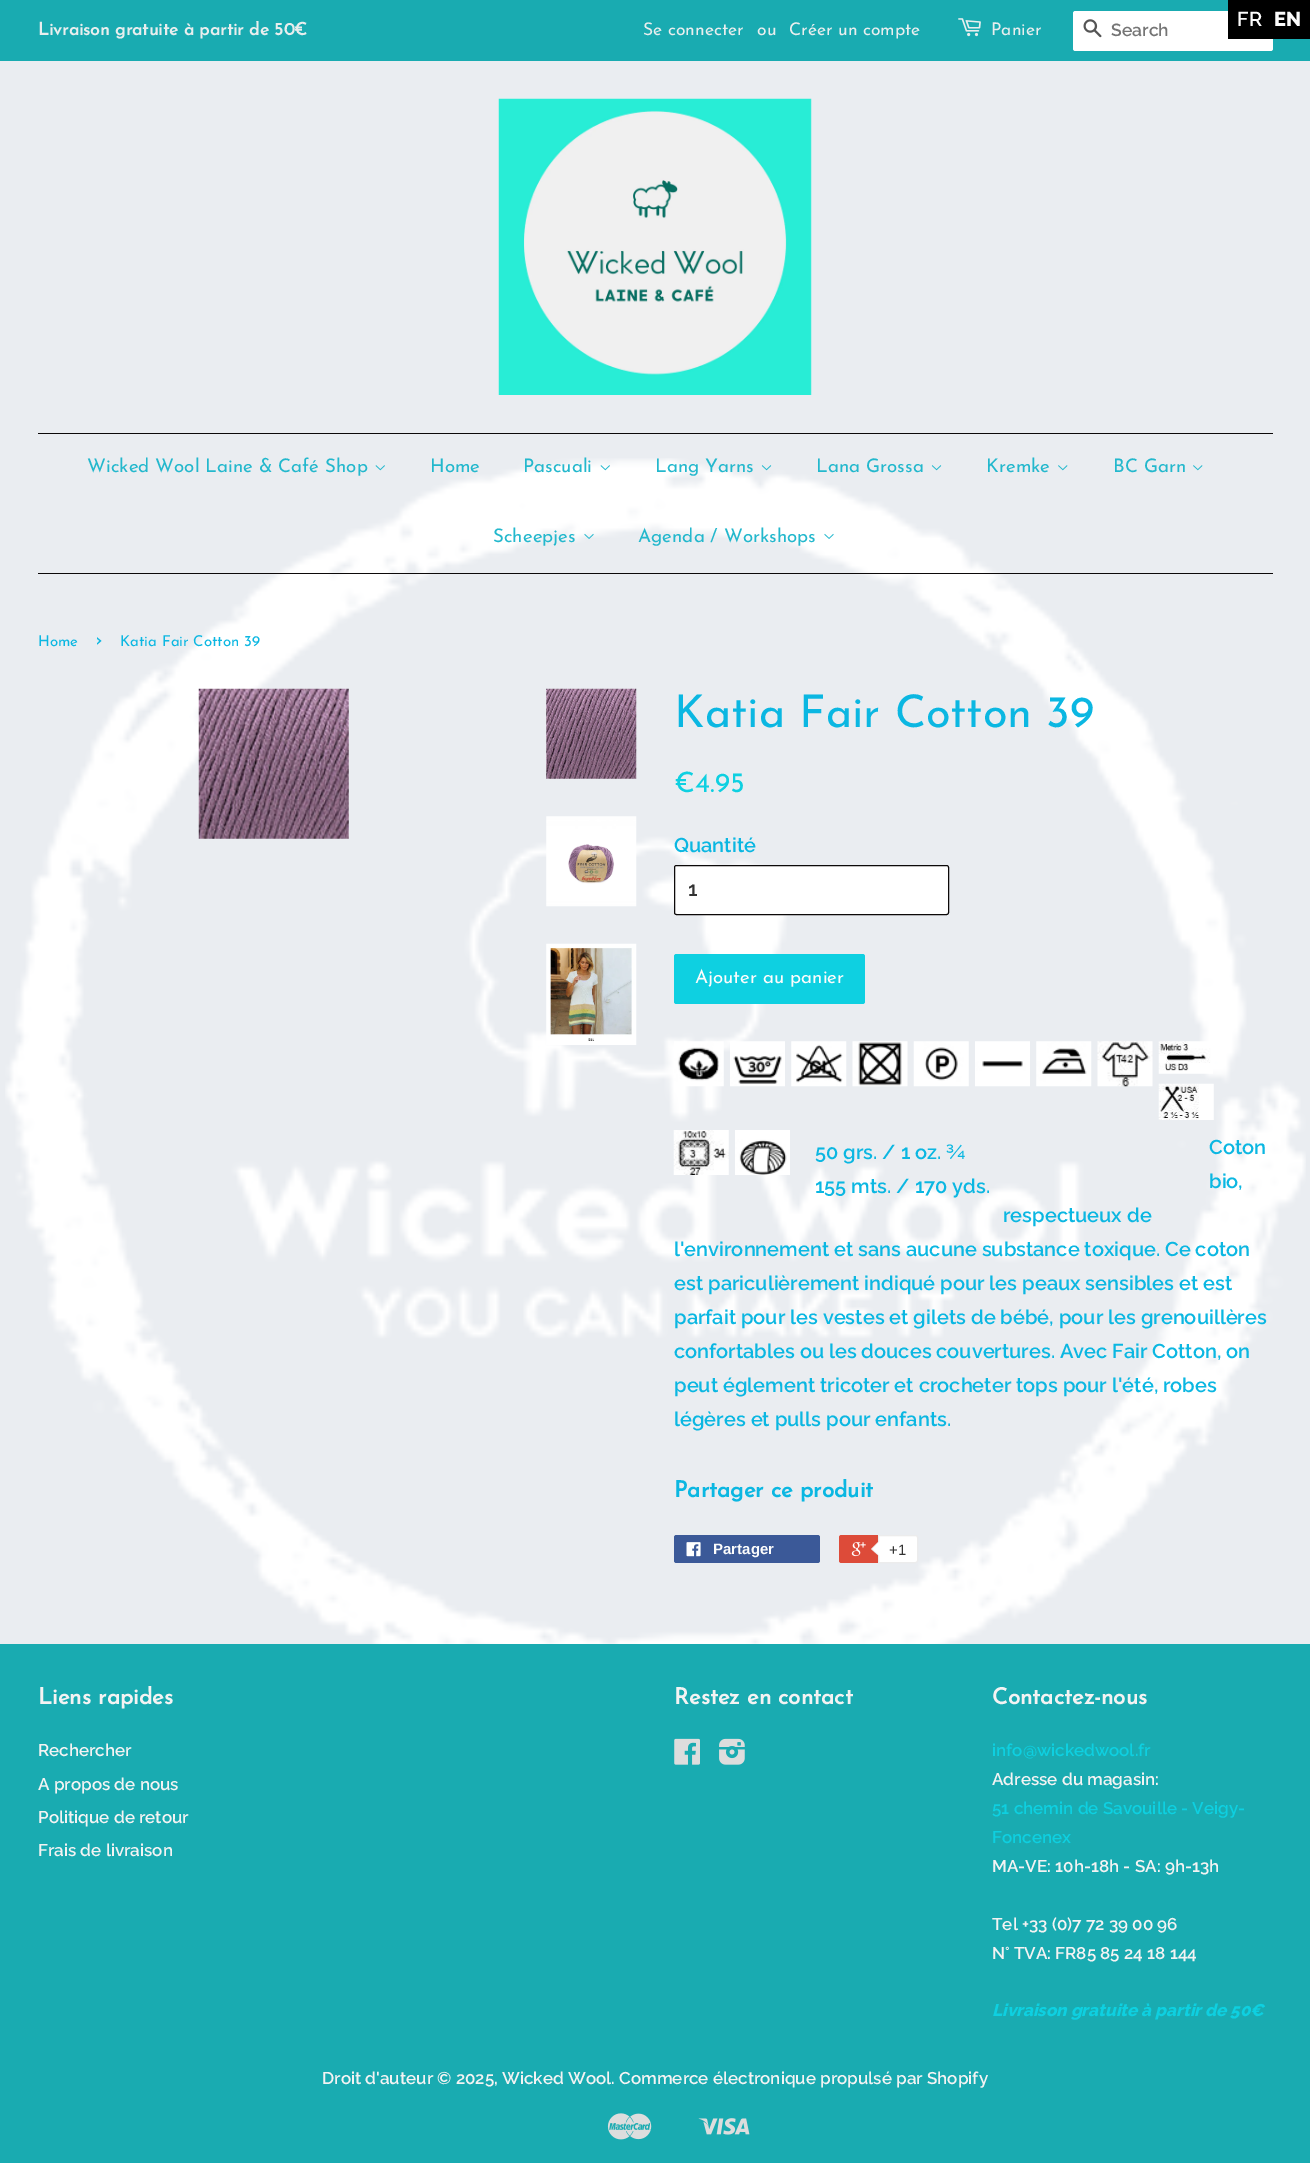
%!PS
<< /PageSize [1310 2163] >> setpagedevice
/rgb { dup -16 bitshift 255 div exch dup -8 bitshift 255 and 255 div exch 255 and 255 div setrgbcolor } def
/font { [ exch dup neg 0 0 3 -1 roll 0 0 ] selectfont } def
/text { moveto show } def
/roundrect { 5 dict begin { /r /h /w /y /x } { exch def } forall
  x r add y moveto x w add y 2 copy h add r arct x w add y h add x 1 index r arct
  x y h add x y r arct x y 2 copy exch w add exch r arct closepath end } def
/picture { 5 dict begin { /h /w /y /x /name } { exch def } forall
  gsave x y translate w h scale
  w h 8 [w 0 0 h 0 0] name (r) file false 3 colorimage grestore end } def
0 2163 translate 1 -1 scale
4 setmiterlimit
/s1 { /Raleway-SemiBold 20 font 16#FCFCFC rgb } def
/s2 { /Raleway-ExtraBold 20 font 16#FCFCFC rgb } def
/s3 { /JosefinSans-Bold 17.5 font 16#E8EEEE rgb } def
/s4 { /JosefinSans-Thin 17.5 font 16#E8EEEE rgb } def
/s5 { /Raleway-SemiBold 17.5 font 16#757575 rgb } def
/s6 { /JosefinSans-Thin 18.75 font 16#23B8CD rgb } def
/s7 { /JosefinSans-Thin 15 font 16#0BB7E2 rgb } def
/s8 { /JosefinSans-Thin 21 font 16#0BB7E2 rgb } def
/s9 { /JosefinSans-Thin 45 font 16#0BB7E2 rgb } def
/s10 { /JosefinSans-Thin 28 font 16#0ED0E1 rgb } def
/s11 { /Raleway-SemiBold 20 font 16#0BB7E2 rgb } def
/s12 { /Raleway-SemiBold 20 font 16#333333 rgb } def
/s13 { /JosefinSans-Thin 18.75 font 16#FCFCFC rgb } def
/s14 { /JosefinSans-Bold 22.5 font 16#0BB7E2 rgb } def
/s15 { /LiberationSans-Bold 15 font 16#FCFCFC rgb } def
/s16 { /LiberationSans-Regular 15 font 16#333333 rgb } def
/s17 { /JosefinSans-Bold 22.5 font 16#F3F3F3 rgb } def
/s18 { /Raleway-SemiBold 17 font 16#F3F3F3 rgb } def
/s19 { /Raleway-SemiBold 17 font 16#0ED0E1 rgb } def
/s20 { /Raleway-ExtraBoldItalic 17 font 16#0ED0E1 rgb } def
16#EAEDF1 rgb
0 0 1310 2163 rectfill
(pic1.raw) 5 458 1301 1186 picture
16#19ABB1 rgb
0 0 1310 61 rectfill
16#FFFFFF rgb
1073 11 200 40 2.5 roundrect fill
16#000000 rgb
1228 0 82 39 rectfill
s1
(FR) 1237 26 text
s2
(EN) 1274 26 text
s3
(Livraison gratuite à partir de 50€) 38 35 text
s4
(Se connecter) 643 35 text
(ou) 757 35 text
(Créer un compte) 789 35 text
(pic2.raw) 958 18 23 19 picture
(Panier) 991 35 text
(pic3.raw) 1083 19 19 19 picture
s5
(Search) 1111 36 text
(pic4.raw) 498 98 314 297 picture
16#0C0909 rgb
38 433 1235 1 rectfill
38 573 1235 1 rectfill
s6
(Wicked Wool Laine & Café Shop) 87 472 text
(pic5.raw) 375 465 10 6 picture
(Home) 430 472 text
(Pascuali) 523 472 text
(pic6.raw) 600 465 10 6 picture
(Lang Yarns) 655 472 text
(pic7.raw) 761 465 11 6 picture
(Lana Grossa) 816 472 text
(pic8.raw) 931 465 11 6 picture
(Kremke) 986 472 text
(pic9.raw) 1058 465 10 6 picture
(BC Garn) 1113 472 text
(pic9.raw) 1193 465 10 6 picture
(Scheepjes) 493 542 text
(pic10.raw) 584 533 10 6 picture
(Agenda / Workshops) 638 542 text
(pic11.raw) 824 533 10 6 picture
s7
(Home) 38 646 text
s8
(›) 95 646 text
s7
(Katia Fair Cotton 39) 120 646 text
(pic12.raw) 198 688 151 151 picture
(pic13.raw) 546 688 91 91 picture
(pic14.raw) 546 816 91 91 picture
(pic15.raw) 546 943 91 102 picture
s9
(Katia Fair Cotton 39) 674 727 text
s10
(€4.95) 674 792 text
s11
(Quantité) 674 852 text
16#FFFFFF rgb
674.5 865.5 274 49 2 roundrect gsave fill grestore
16#0C0909 rgb
stroke
s12
(1) 688 896 text
16#0ED0E1 rgb
674 954 191 50 2.5 roundrect fill
s13
(Ajouter au panier) 695 983 text
s11
(Coton) 1209 1154 text
(bio,) 1209 1188 text
(respectueux de) 1003 1222 text
(l'environnement et sans aucune substance toxique. Ce coton) 674 1256 text
(est pariculièrement indiqué pour les peaux sensibles et est) 674 1290 text
(parfait pour les vestes et gilets de bébé, pour les grenouillères) 674 1324 text
(confortables ou les douces couvertures. Avec Fair Cotton, on) 674 1358 text
(peut églement tricoter et crocheter tops pour l'été, robes) 674 1392 text
(légères et pulls pour enfants.) 674 1426 text
(pic16.raw) 674 1041 50 46 picture
(pic17.raw) 730 1041 55 46 picture
(pic18.raw) 791 1041 56 46 picture
(pic19.raw) 852 1041 56 46 picture
(pic20.raw) 913 1041 56 46 picture
(pic21.raw) 975 1041 55 46 picture
(pic22.raw) 1036 1041 56 46 picture
(pic23.raw) 1097 1041 56 46 picture
(pic24.raw) 1158 1041 55 33 picture
(pic25.raw) 1158 1083 56 37 picture
(pic26.raw) 673 1130 56 45 picture
(pic27.raw) 735 1130 55 45 picture
(50 grs. / 1 oz. ¾) 815 1159 text
(155 mts. / 170 yds.) 815 1193 text
s14
(Partager ce produit) 674 1497 text
16#3B5998 rgb
674 1535 146 28 2.5 roundrect fill
(pic28.raw) 686 1542 15 15 picture
s15
(Partager) 713 1554 text
16#DD4B39 rgb
839 1535 76 28 2.5 roundrect fill
(pic29.raw) 851 1542 15 15 picture
16#FFFFFF rgb
878.5 1535.5 moveto 915.5 1535.5 lineto 916.5 1535.5 917.5 1536.5 917.5 1537.5 curveto 917.5 1560.5 lineto 917.5 1561.5 916.5 1562.5 915.5 1562.5 curveto 878.5 1562.5 lineto closepath gsave fill grestore
16#ECECEC rgb
stroke
879 1541 moveto 879 1556 lineto 871 1549 lineto closepath fill
16#FFFFFF rgb
880 1541 moveto 880 1556 lineto 872.5 1549 lineto closepath fill
s16
(+1) 889 1555 text
16#19ABB1 rgb
0 1644 1310 519 rectfill
s17
(Liens rapides) 38 1704 text
s18
(Rechercher) 38 1756 text
(A propos de nous) 38 1790 text
(Politique de retour) 38 1823 text
(Frais de livraison) 38 1856 text
s17
(Restez en contact) 674 1704 text
(pic30.raw) 674 1738 26 27 picture
(pic31.raw) 719 1738 26 27 picture
(Contactez-nous) 992 1704 text
s19
(info@wickedwool.fr) 992 1756 text
s18
(Adresse du magasin:) 992 1785 text
s19
(51 chemin de Savouille - Veigy-) 992 1814 text
(Foncenex) 992 1843 text
s18
(MA-VE: 10h-18h - SA: 9h-13h) 992 1872 text
(Tel +33 \(0\)7 72 39 00 96) 992 1930 text
(N° TVA: FR85 85 24 18 144) 992 1959 text
s20
(Livraison gratuite à partir de 50€) 992 2016 text
s18
(Droit d'auteur © 2025, Wicked Wool. Commerce électronique propulsé par Shopify) 322 2084 text
(pic32.raw) 607 2113 45 27 picture
(pic33.raw) 698 2118 52 17 picture
showpage
